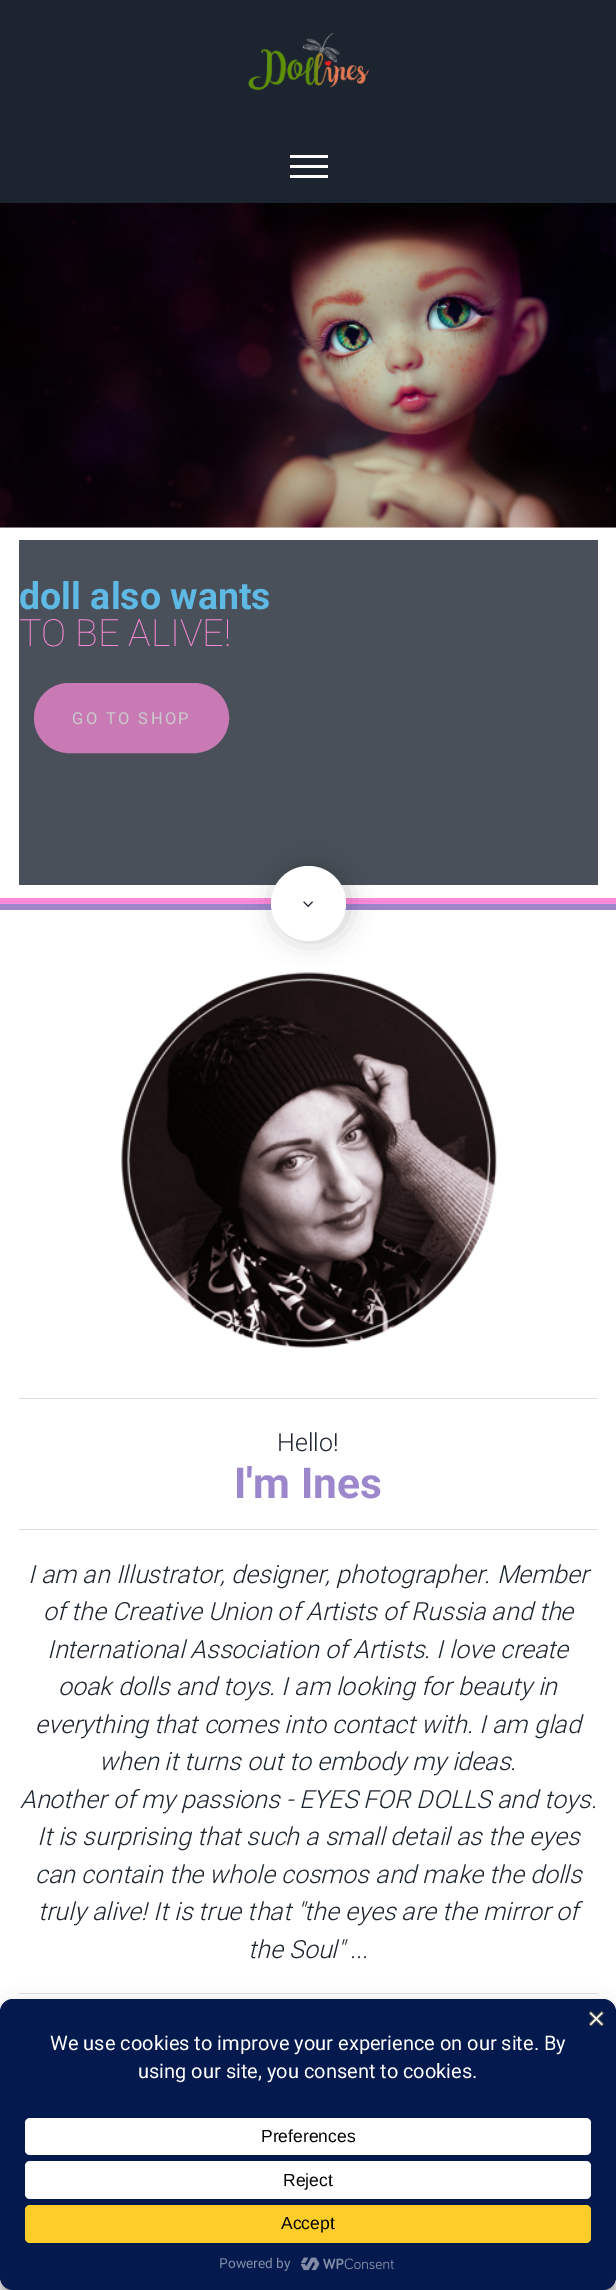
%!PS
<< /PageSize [616 2290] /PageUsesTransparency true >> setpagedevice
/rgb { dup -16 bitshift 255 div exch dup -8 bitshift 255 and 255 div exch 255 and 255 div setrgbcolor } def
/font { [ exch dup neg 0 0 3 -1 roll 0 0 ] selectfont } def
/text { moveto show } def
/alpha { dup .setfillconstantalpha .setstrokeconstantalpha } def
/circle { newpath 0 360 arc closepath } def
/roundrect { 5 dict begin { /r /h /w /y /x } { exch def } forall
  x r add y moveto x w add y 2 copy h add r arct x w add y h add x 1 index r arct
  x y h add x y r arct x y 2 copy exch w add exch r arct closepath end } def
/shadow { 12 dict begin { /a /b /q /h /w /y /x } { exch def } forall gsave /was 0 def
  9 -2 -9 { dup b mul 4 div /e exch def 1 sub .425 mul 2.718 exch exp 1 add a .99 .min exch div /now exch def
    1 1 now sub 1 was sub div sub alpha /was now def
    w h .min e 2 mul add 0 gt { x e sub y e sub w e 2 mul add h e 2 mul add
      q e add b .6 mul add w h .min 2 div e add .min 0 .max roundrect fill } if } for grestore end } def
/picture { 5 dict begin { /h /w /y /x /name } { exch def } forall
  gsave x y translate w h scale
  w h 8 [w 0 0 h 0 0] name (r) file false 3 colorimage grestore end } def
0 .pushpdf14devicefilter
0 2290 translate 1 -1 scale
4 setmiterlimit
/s1 { /Roboto-Bold 37.5 font 16#5EB9E5 rgb } def
/s2 { /Roboto-Thin 37.5 font 16#FF8ADB rgb } def
/s3 { /Roboto-Light 25 font 16#1C242F rgb } def
/s4 { /Roboto-Bold 42.5 font 16#9C86CC rgb } def
/s5 { /Roboto-LightItalic 25 font 16#1C242F rgb } def
/s6 { /Roboto-Regular 20 font 16#FFFFFF rgb } def
/s7 { /LiberationSans-Regular 17.5 font 16#000000 rgb } def
/s8 { /Roboto-Regular 13.75 font 16#828CA7 rgb } def
16#FF8ADB rgb
0 0 616 2290 rectfill
16#1C242F rgb
0 0 616 203 rectfill
(pic1.raw) 248 33 121 58 picture
16#FFFFFF rgb
290 165 38 3 rectfill
290 155 38 3 rectfill
290 175 38 3 rectfill
0 527 616 371 rectfill
(pic2.raw) 0 203 616 325 picture
16#4A5059 rgb
19 540 579 345 rectfill
s1
(doll also wants) 19 609 text
s2
(TO BE ALIVE!) 19 646 text
16#C979B4 rgb
34.5 683.5 194 69 34.5 roundrect gsave fill grestore
stroke
/Roboto-Regular 16.5 font
16#C9CBCD rgb
72 724 moveto 2.4 0 (GO TO SHOP) ashow
16#9C86CC rgb
0 904 616 6 rectfill
16#FFFFFF rgb
0 910 616 1380 rectfill
(pic4.raw) 121 972 376 376 picture
16#000000 rgb
274 866 75 75 37.5 12.5 0.2 shadow
16#FFFFFF rgb
308.5 903.5 37.5 circle fill
(pic3.raw) 303 901 10 6 picture
16#DDDDDD rgb
19 1398 579 1 rectfill
s3
(Hello!) 277 1451 text
s4
(I'm Ines) 234 1498 text
16#DDDDDD rgb
19 1529 579 1 rectfill
s5
(I am an Illustrator, designer, photographer. Member) 28 1583 text
(of the Creative Union of Artists of Russia and the) 43 1620 text
(International Association of Artists. I love create) 47 1658 text
(ooak dolls and toys. I am looking for beauty in) 58 1695 text
(everything that comes into contact with. I am glad) 35 1733 text
(when it turns out to embody my ideas.) 99 1770 text
(Another of my passions - EYES FOR DOLLS and toys.) 20 1808 text
(It is surprising that such a small detail as the eyes) 37 1845 text
(can contain the whole cosmos and make the dolls) 35 1883 text
(truly alive! It is true that "the eyes are the mirror of) 38 1920 text
(the Soul" ...) 248 1958 text
16#DDDDDD rgb
19 1993 579 1 rectfill
16#000000 rgb
0 2006 616 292 13 4 0.23 shadow
0 2011 616 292 13 12.5 0.19 shadow
16#04194E rgb
0 1999 616 291 13 roundrect fill
(pic5.raw) 589 2011 15 15 picture
s6
(We use cookies to improve your experience on our site. By) 50 2050 text
(using our site, you consent to cookies.) 138 2078 text
25 2118 566 37 5 roundrect fill
s7
(Preferences) 261 2142 text
16#FFFFFF rgb
25 2161 566 38 5 roundrect fill
s7
(Reject) 283 2186 text
16#FFCD2A rgb
25 2205 566 38 5 roundrect fill
s7
(Accept) 281 2229 text
s8
(Powered by) 219 2268 text
(pic6.raw) 300 2257 94 14 picture
.poppdf14devicefilter showpage
